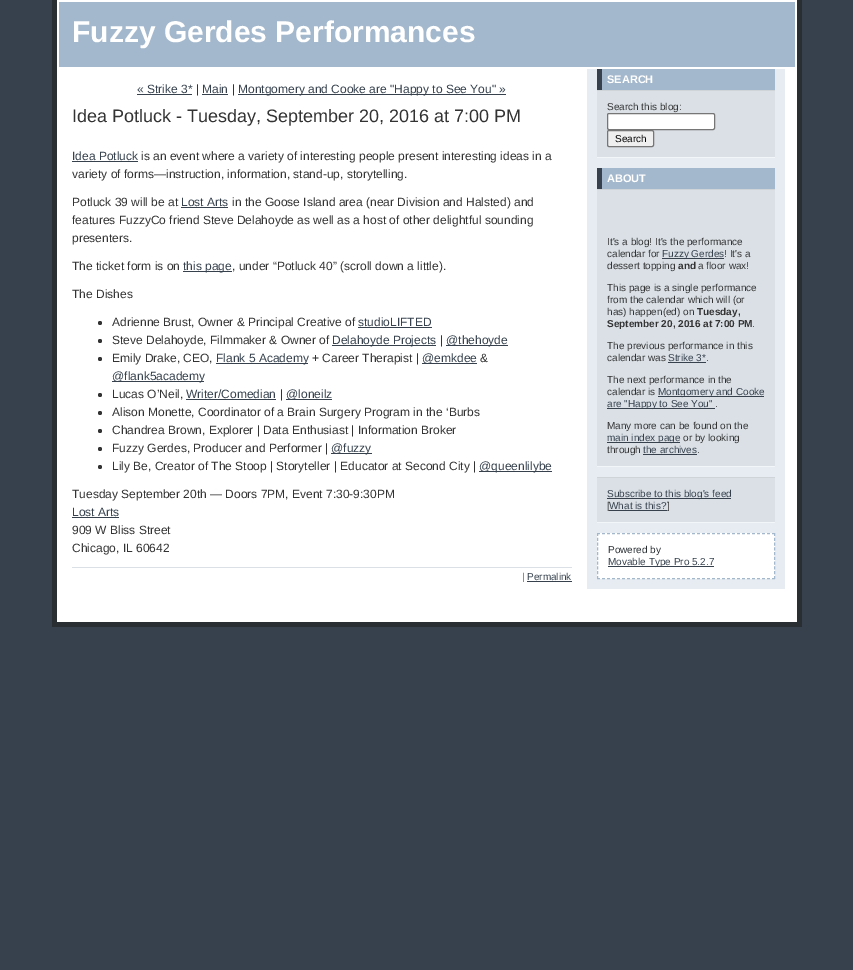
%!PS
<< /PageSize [853 970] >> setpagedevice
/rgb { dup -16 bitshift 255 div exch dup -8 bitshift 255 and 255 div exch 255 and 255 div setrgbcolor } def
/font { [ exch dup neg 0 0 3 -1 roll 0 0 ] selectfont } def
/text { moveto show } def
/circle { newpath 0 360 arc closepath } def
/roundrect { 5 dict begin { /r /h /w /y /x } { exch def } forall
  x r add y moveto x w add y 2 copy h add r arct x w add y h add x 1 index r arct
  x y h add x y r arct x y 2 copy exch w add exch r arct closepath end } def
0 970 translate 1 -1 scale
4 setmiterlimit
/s1 { /LiberationSans-Bold 30 font 16#FFFFFF rgb } def
/s2 { /LiberationSans-Regular 12 font 16#36414D rgb } def
/s3 { /LiberationSans-Regular 12 font 16#333333 rgb } def
/s4 { /LiberationSans-Regular 18 font 16#333333 rgb } def
/s5 { /LiberationSans-Regular 10 font 16#666666 rgb } def
/s6 { /LiberationSans-Regular 10 font 16#36414D rgb } def
/s7 { /LiberationSans-Bold 11 font 16#FFFFFF rgb } def
/s8 { /LiberationSans-Regular 10 font 16#333333 rgb } def
/s9 { /LiberationSans-Regular 10 font 16#000000 rgb } def
/s10 { /LiberationSans-Bold 10 font 16#333333 rgb } def
/s11 { /LiberationSans-Regular 10 font 16#292E33 rgb } def
16#36414D rgb
0 0 853 970 rectfill
16#FFFFFF rgb
57 67 740 555 rectfill
16#292E33 rgb
797 0 5 627 rectfill
52 622 750 5 rectfill
52 0 5 627 rectfill
16#A3B8CC rgb
59 2 736 65 rectfill
16#FFFFFF rgb
57 0 740 2 rectfill
795 0 2 67 rectfill
57 0 2 67 rectfill
s1
(Fuzzy Gerdes Performances) 72 42 text
s2
(« Strike 3*) 137 93 text
137 94 55 1 rectfill
s3
(|) 196 93 text
s2
(Main) 202 93 text
202 94 26 1 rectfill
s3
(|) 232 93 text
16#36414D rgb
238 94 268 1 rectfill
(Montgomery and Cooke are "Happy to See You" ») 238 93 text
s4
(Idea Potluck - Tuesday, September 20, 2016 at 7:00 PM) 72 122 text
s2
(Idea Potluck) 72 160 text
72 161 66 1 rectfill
s3
(is an event where a variety of interesting people present interesting ideas in a) 141 160 text
(variety of forms—instruction, information, stand-up, storytelling.) 72 178 text
(Potluck 39 will be at) 72 206 text
s2
(Lost Arts) 181 206 text
181 207 47 1 rectfill
s3
(in the Goose Island area \(near Division and Halsted\) and) 232 206 text
(features FuzzyCo friend Steve Delahoyde as well as a host of other delightful sounding) 72 224 text
(presenters.) 72 242 text
(The ticket form is on) 72 270 text
16#36414D rgb
183 271 49 1 rectfill
(this page) 183 270 text
s3
(, under “Potluck 40” \(scroll down a little\).) 232 270 text
(The Dishes) 72 298 text
100 323 2 circle fill
(Adrienne Brust, Owner & Principal Creative of) 112 326 text
s2
(studioLIFTED) 358 326 text
358 327 74 1 rectfill
16#333333 rgb
100 341 2 circle fill
(Steve Delahoyde, Filmmaker & Owner of) 112 344 text
16#36414D rgb
332 345 104 1 rectfill
(Delahoyde Projects) 332 344 text
s3
(|) 440 344 text
16#36414D rgb
446 345 62 1 rectfill
(@thehoyde) 446 344 text
16#333333 rgb
100 359 2 circle fill
(Emily Drake, CEO,) 112 362 text
16#36414D rgb
216 363 92 1 rectfill
(Flank 5 Academy) 216 362 text
s3
(+ Career Therapist |) 312 362 text
16#36414D rgb
422 363 55 1 rectfill
(@emkdee) 422 362 text
s3
(&) 480 362 text
16#36414D rgb
112 381 92 1 rectfill
(@flank5academy) 112 380 text
16#333333 rgb
100 395 2 circle fill
(Lucas O’Neil,) 112 398 text
s2
(Writer/Comedian) 186 398 text
186 399 90 1 rectfill
s3
(|) 280 398 text
16#36414D rgb
286 399 46 1 rectfill
(@loneilz) 286 398 text
16#333333 rgb
100 413 2 circle fill
(Alison Monette, Coordinator of a Brain Surgery Program in the ‘Burbs) 112 416 text
100 431 2 circle fill
(Chandrea Brown, Explorer | Data Enthusiast | Information Broker) 112 434 text
100 449 2 circle fill
(Fuzzy Gerdes, Producer and Performer |) 112 452 text
16#36414D rgb
331 453 41 1 rectfill
(@fuzzy) 331 452 text
16#333333 rgb
100 467 2 circle fill
(Lily Be, Creator of The Stoop | Storyteller | Educator at Second City |) 112 470 text
16#36414D rgb
479 471 73 1 rectfill
(@queenlilybe) 479 470 text
s3
(Tuesday September 20th — Doors 7PM, Event 7:30-9:30PM) 72 498 text
s2
(Lost Arts) 72 516 text
72 517 47 1 rectfill
s3
(909 W Bliss Street) 72 534 text
(Chicago, IL 60642) 72 552 text
16#DAE0E6 rgb
72 567 500 1 rectfill
s5
(|) 522 580 text
s6
(Permalink) 527 580 text
527 581 45 1 rectfill
16#E6ECF2 rgb
587 69 198 520 rectfill
16#DAE0E6 rgb
597 91 178 66 rectfill
16#F3F6F9 rgb
597 157 178 1 rectfill
16#A3B8CC rgb
602 69 173 21 rectfill
16#36414D rgb
597 69 5 21 rectfill
s7
(SEARCH) 607 83 text
16#CFD4D9 rgb
597 90 178 1 rectfill
s8
(Search this blog:) 607 110 text
16#FFFFFF rgb
607.5 113.5 107 16 1.5 roundrect gsave fill grestore
16#767676 rgb
stroke
16#EFEFEF rgb
607.5 130.5 46 16 1.5 roundrect gsave fill grestore
16#767676 rgb
stroke
s9
(Search) 615 142 text
16#DAE0E6 rgb
597 190 178 276 rectfill
16#F3F6F9 rgb
597 466 178 1 rectfill
16#A3B8CC rgb
602 168 173 21 rectfill
16#36414D rgb
597 168 5 21 rectfill
s7
(ABOUT) 607 182 text
16#CFD4D9 rgb
597 189 178 1 rectfill
s8
(It's a blog! It's the performance) 607 245 text
(calendar for) 607 257 text
16#36414D rgb
662 258 62 1 rectfill
(Fuzzy Gerdes) 662 257 text
s8
(! It's a) 724 257 text
(dessert topping) 607 269 text
s10
(and) 678 269 text
s8
(a floor wax!) 698 269 text
(This page is a single performance) 607 291 text
(from the calendar which will \(or) 607 303 text
(has\) happen\(ed\) on) 607 315 text
s10
(Tuesday,) 697 315 text
(September 20, 2016 at 7:00 PM) 607 327 text
s8
(.) 752 327 text
(The previous performance in this) 607 349 text
(calendar was) 607 361 text
s6
(Strike 3*) 668 361 text
668 362 38 1 rectfill
s8
(.) 706 361 text
(The next performance in the) 607 383 text
(calendar is) 607 395 text
16#36414D rgb
658 396 106 1 rectfill
(Montgomery and Cooke) 658 395 text
607 408 108 1 rectfill
(are "Happy to See You") 607 407 text
s8
(.) 715 407 text
(Many more can be found on the) 607 429 text
16#36414D rgb
607 442 73 1 rectfill
(main index page) 607 441 text
s8
(or by looking) 683 441 text
(through) 607 453 text
s6
(the archives) 643 453 text
643 454 54 1 rectfill
s8
(.) 697 453 text
16#DAE0E6 rgb
597 478 178 44 rectfill
16#F3F6F9 rgb
597 522 178 1 rectfill
16#CFD4D9 rgb
597 477 178 1 rectfill
16#36414D rgb
607 498 124 1 rectfill
(Subscribe to this blog's feed) 607 497 text
s8
([) 607 509 text
s6
(What is this?) 609 509 text
609 510 58 1 rectfill
s8
(]) 667 509 text
16#FFFFFF rgb
597 533 178 46 rectfill
16#A3B8CC rgb
[3 2] 0 setdash
597 533.5 moveto 775 533.5 lineto stroke
[3 1.78] 0 setdash
774.5 533 moveto 774.5 579 lineto stroke
[3 2] 0 setdash
597 578.5 moveto 775 578.5 lineto stroke
[3 1.78] 0 setdash
597.5 533 moveto 597.5 579 lineto stroke
s11
(Powered by) 608 553 text
16#36414D rgb
608 566 106 1 rectfill
(Movable Type Pro 5.2.7) 608 565 text
showpage
